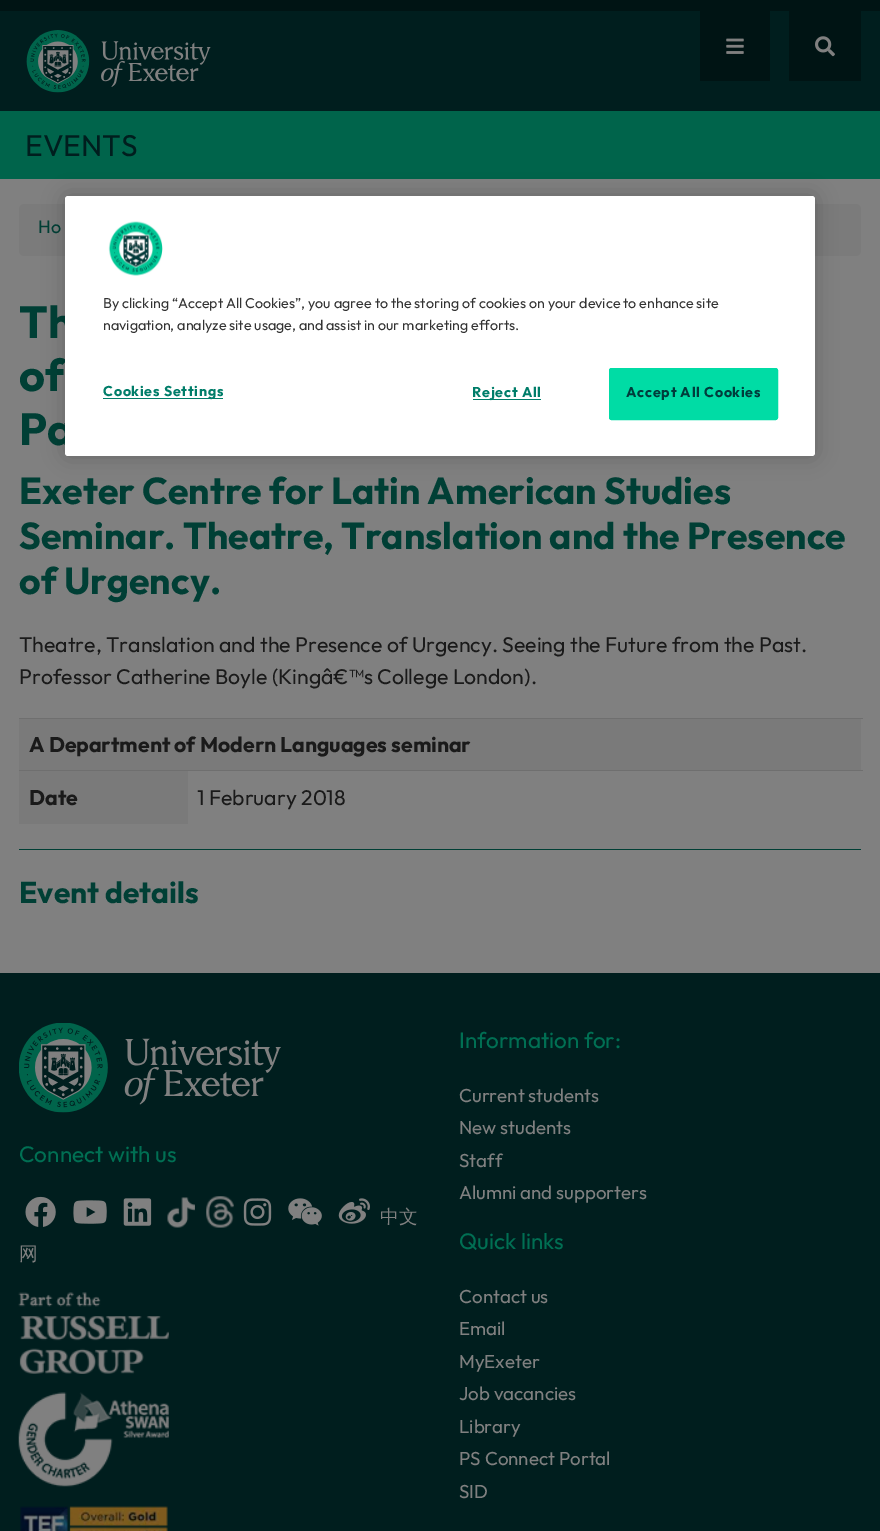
%!PS
<< /PageSize [880 1531] /PageUsesTransparency true >> setpagedevice
/rgb { dup -16 bitshift 255 div exch dup -8 bitshift 255 and 255 div exch 255 and 255 div setrgbcolor } def
/font { [ exch dup neg 0 0 3 -1 roll 0 0 ] selectfont } def
/text { moveto show } def
/alpha { dup .setfillconstantalpha .setstrokeconstantalpha } def
/roundrect { 5 dict begin { /r /h /w /y /x } { exch def } forall
  x r add y moveto x w add y 2 copy h add r arct x w add y h add x 1 index r arct
  x y h add x y r arct x y 2 copy exch w add exch r arct closepath end } def
/shadow { 12 dict begin { /a /b /q /h /w /y /x } { exch def } forall gsave /was 0 def
  9 -2 -9 { dup b mul 4 div /e exch def 1 sub .425 mul 2.718 exch exp 1 add a .99 .min exch div /now exch def
    1 1 now sub 1 was sub div sub alpha /was now def
    w h .min e 2 mul add 0 gt { x e sub y e sub w e 2 mul add h e 2 mul add
      q e add b .6 mul add w h .min 2 div e add .min 0 .max roundrect fill } if } for grestore end } def
/picture { 5 dict begin { /h /w /y /x /name } { exch def } forall
  gsave x y translate w h scale
  w h 8 [w 0 0 h 0 0] name (r) file false 3 colorimage grestore end } def
0 .pushpdf14devicefilter
0 1531 translate 1 -1 scale
4 setmiterlimit
/s1 { /Outfit-Thin 30 font 16#001E1E rgb } def
/s2 { /Outfit-Thin 18 font 16#003F35 rgb } def
/s3 { /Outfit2-Thin 45 font 16#003F35 rgb } def
/s4 { /Outfit2-Thin 37.5 font 16#003F35 rgb } def
/s5 { /Outfit-Thin 21.25 font 16#1A1A1A rgb } def
/s6 { /Outfit2-Thin 21.25 font 16#1A1A1A rgb } def
/s7 { /Outfit2-Thin 30 font 16#003F35 rgb } def
/s8 { /Outfit-Thin 14.25 font 16#333333 rgb } def
/s9 { /Outfit-Thin 22.5 font 16#006F53 rgb } def
/s10 { /WenQuanYiZenHei-Medium 18.75 font 16#808080 rgb } def
/s11 { /Outfit-Thin 18.75 font 16#808080 rgb } def
16#808080 rgb
0 0 880 1531 rectfill
16#001E1E rgb
0 11 880 100 rectfill
16#001414 rgb
0 0 880 11 rectfill
(pic1.raw) 26 30 185 63 picture
700 11 70 70 rectfill
(pic2.raw) 726 38 18 16 picture
789 11 72 70 rectfill
(pic3.raw) 815 36 20 21 picture
16#00644B rgb
0 111 880 68 rectfill
s1
(EVENTS) 25 156 text
16#7B7B7B rgb
19 204 842 52 5 roundrect fill
s2
(Ho) 38 233 text
s3
(Th) 19 338 text
(of) 19 391 text
(Pa) 19 445 text
s4
(Exeter Centre for Latin American Studies) 19 504 text
(Seminar. Theatre, Translation and the Presence) 19 549 text
(of Urgency.) 19 594 text
s5
(Theatre, Translation and the Presence of Urgency. Seeing the Future from the Past.) 19 652 text
(Professor Catherine Boyle \(Kingâ€™s College London\).) 19 684 text
16#7A7A7A rgb
19 719 842 51 rectfill
16#6F6F6F rgb
19 718 844 1 rectfill
s6
(A Department of Modern Languages seminar) 29 752 text
16#7A7A7A rgb
19 771 169 53 rectfill
s6
(Date) 29 805 text
16#6F6F6F rgb
19 770 844 1 rectfill
s5
(1 February 2018) 197 805 text
16#003F35 rgb
19 849 842 1 rectfill
s7
(Event details) 19 903 text
16#000000 rgb
65 196 750 260 3 11 0.2 shadow
16#FFFFFF rgb
65 196 750 260 3 roundrect fill
(pic4.raw) 108 221 55 55 picture
s8
(By clicking “Accept All Cookies”, you agree to the storing of cookies on your device to enhance site) 103 308 text
(navigation, analyze site usage, and assist in our marketing efforts.) 103 330 text
16#007D69 rgb
103 398 120 1 rectfill
/Outfit2-Thin 14.25 font
103 396 moveto 0.75 0 (Cookies Settings) ashow
473 399 68 1 rectfill
472 397 moveto 0.75 0 (Reject All) ashow
16#00DCA5 rgb
609.5 368.5 168 51 2 roundrect gsave fill grestore
stroke
16#003C3C rgb
626 397 moveto 0.75 0 (Accept All Cookies) ashow
16#001E1E rgb
0 973 880 558 rectfill
(pic5.raw) 19 1023 262 90 picture
s9
(Connect with us) 19 1162 text
(pic6.raw) 25 1196 31 31 picture
(pic7.raw) 73 1200 34 24 picture
(pic8.raw) 123 1198 29 28 picture
(pic9.raw) 167 1197 28 31 picture
(pic10.raw) 206 1196 28 32 picture
(pic11.raw) 243 1198 29 28 picture
(pic12.raw) 288 1198 34 28 picture
(pic13.raw) 338 1198 32 26 picture
s10
(中文) 380 1223 text
(网) 19 1260 text
(pic14.raw) 18 1292 151 82 picture
(pic15.raw) 18 1392 151 95 picture
(pic16.raw) 20 1506 148 25 picture
s9
(Information for:) 459 1048 text
s11
(Current students) 459 1102 text
(New students) 459 1134 text
(Staff) 459 1167 text
(Alumni and supporters) 459 1199 text
s9
(Quick links) 459 1249 text
s11
(Contact us) 459 1303 text
(Email) 459 1335 text
(MyExeter) 459 1368 text
(Job vacancies) 459 1400 text
(Library) 459 1433 text
(PS Connect Portal) 459 1465 text
(SID) 459 1498 text
.poppdf14devicefilter showpage
